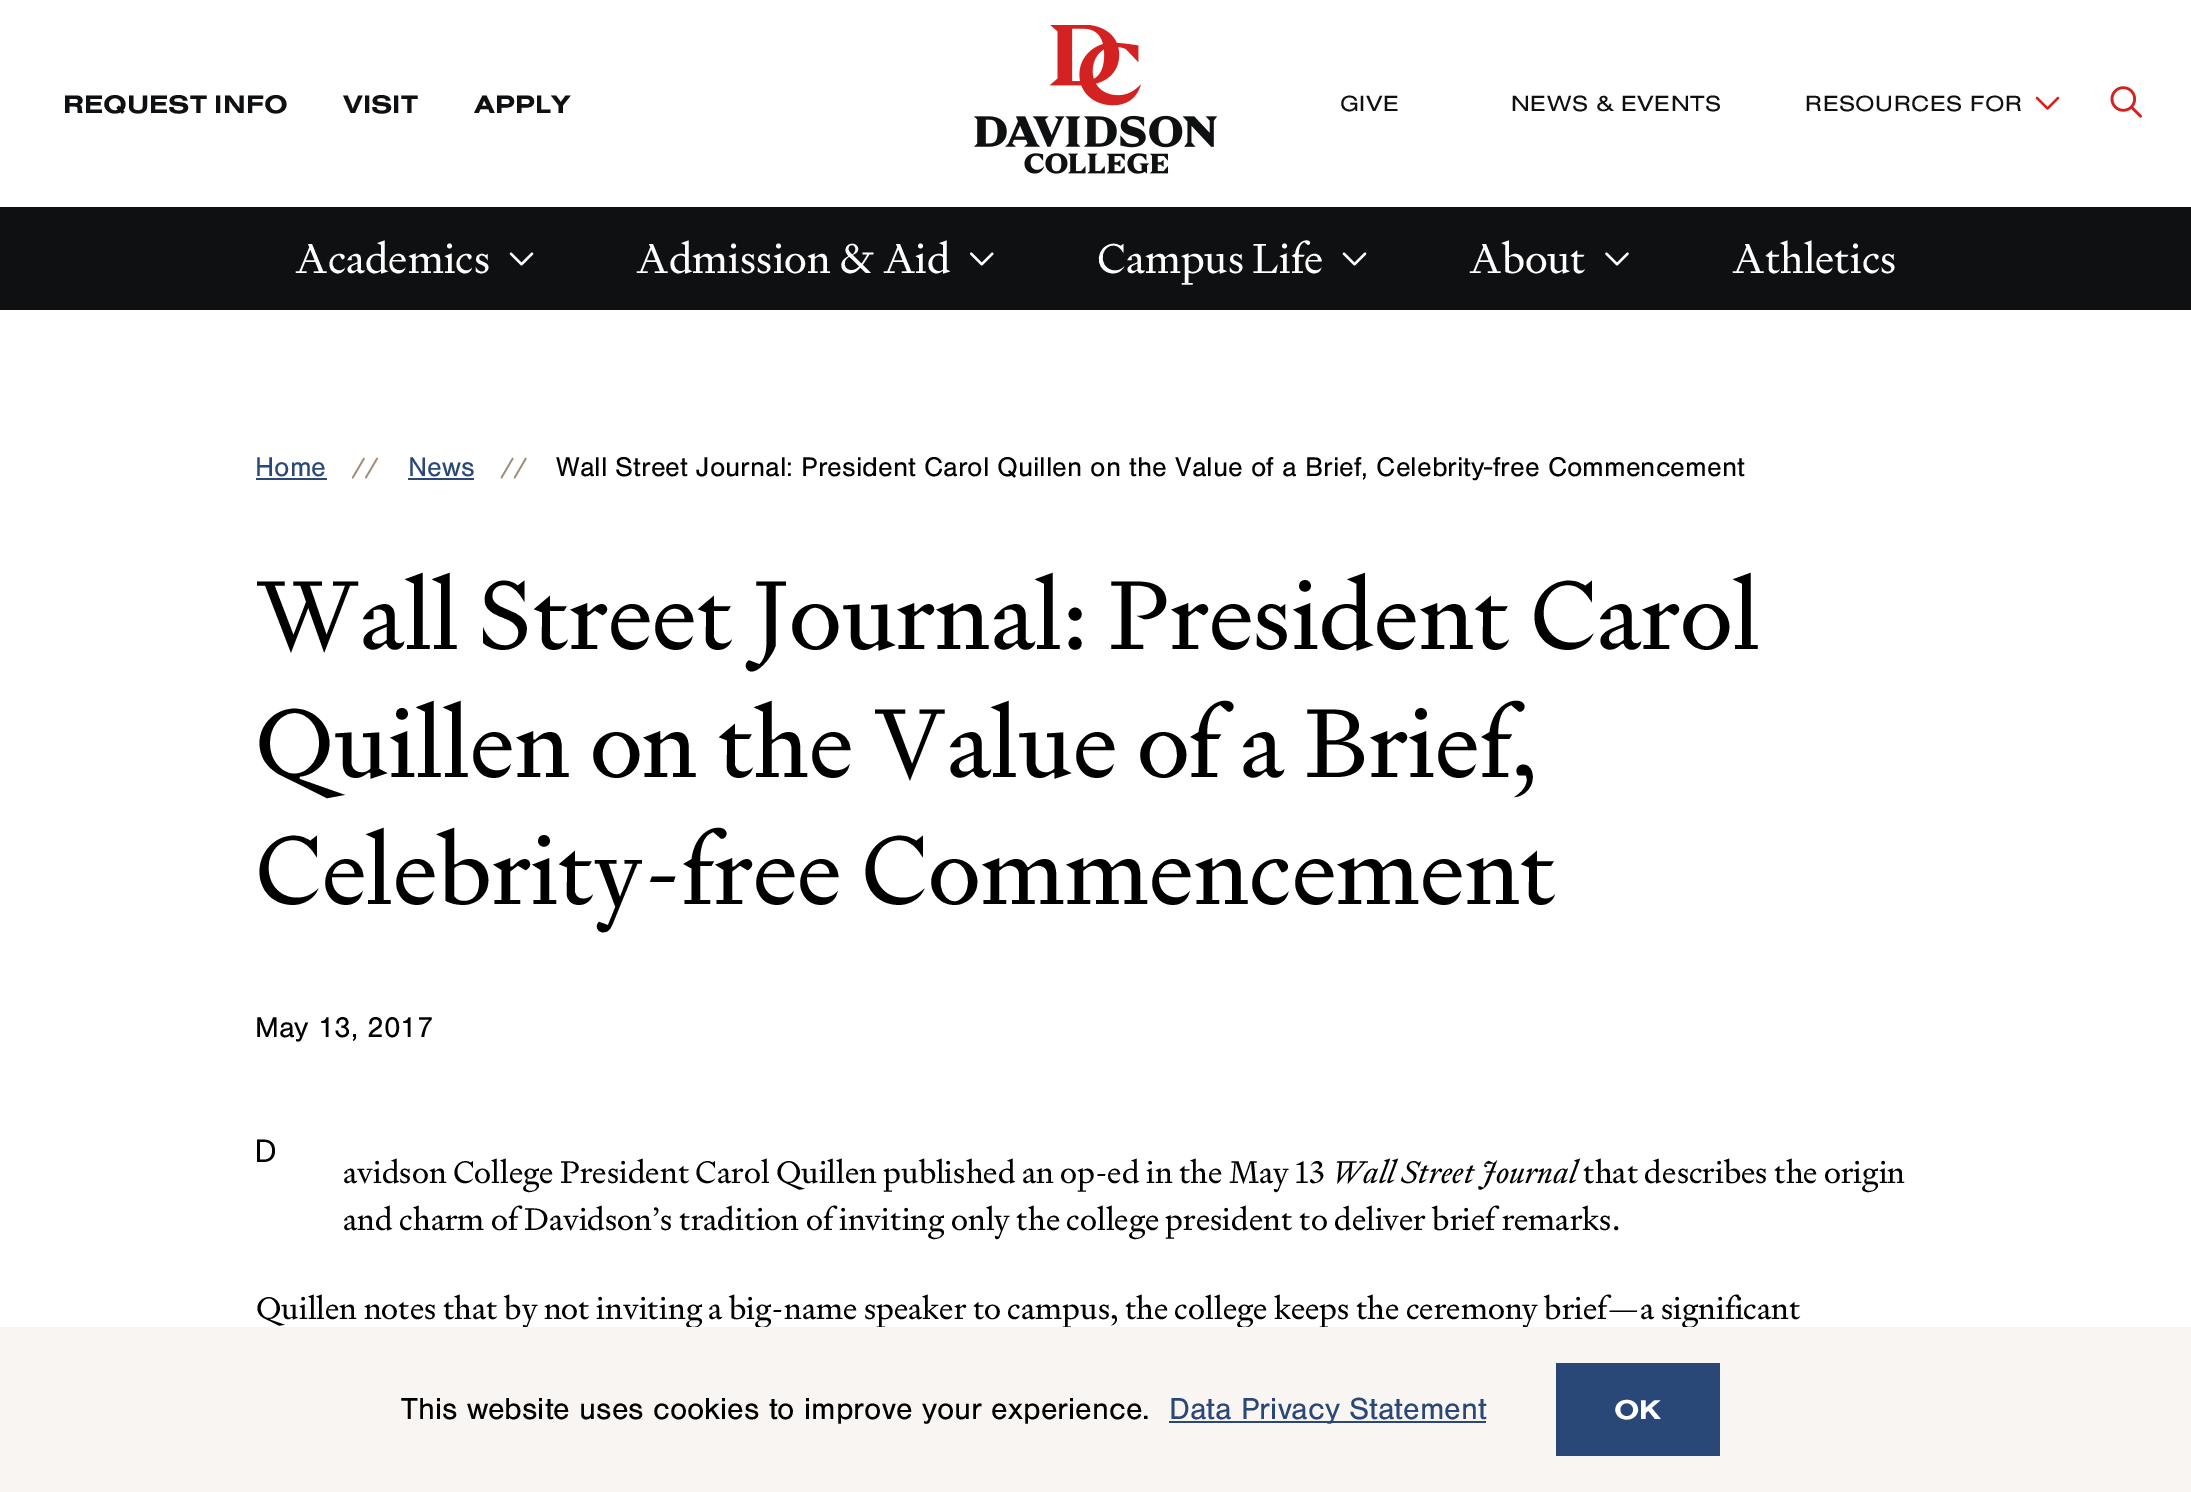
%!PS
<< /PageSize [2191 1492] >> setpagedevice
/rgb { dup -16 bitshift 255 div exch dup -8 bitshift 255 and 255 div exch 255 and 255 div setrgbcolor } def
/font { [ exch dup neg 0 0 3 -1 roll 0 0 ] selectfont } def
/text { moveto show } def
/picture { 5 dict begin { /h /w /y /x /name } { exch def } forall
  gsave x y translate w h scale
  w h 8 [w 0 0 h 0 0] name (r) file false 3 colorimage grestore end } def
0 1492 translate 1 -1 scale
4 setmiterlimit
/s1 { /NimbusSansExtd-Bold 26.25 font 16#0F1012 rgb } def
/s2 { /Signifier-Regular 42 font 16#FFFFFF rgb } def
/s3 { /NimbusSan-Regular 28 font 16#294878 rgb } def
/s4 { /NimbusSan-Regular 28 font 16#000000 rgb } def
/s5 { /Signifier-Regular 98 font 16#000000 rgb } def
/s6 { /NimbusSan-Regular 29.75 font 16#000000 rgb } def
/s7 { /NotoSans-Regular 31.5 font 16#000000 rgb } def
/s8 { /Signifier-Regular 31.5 font 16#000000 rgb } def
/s9 { /Signifier-Italic 31.5 font 16#000000 rgb } def
/s10 { /NimbusSan-Regular 31.5 font 16#000000 rgb } def
/s11 { /NimbusSan-Regular 31.5 font 16#294878 rgb } def
/s12 { /NimbusSansExtd-Bold 28 font 16#FFFFFF rgb } def
16#FFFFFF rgb
0 0 2191 1492 rectfill
s1
(REQUEST INFO) 63 113 text
(VISIT) 343 113 text
(APPLY) 474 113 text
(pic1.raw) 974 25 243 149 picture
/NimbusSansExtd-Regular 22.75 font
1340 111 moveto 0.5 0 (GIVE) ashow
1511 111 moveto 0.5 0 (NEWS & EVENTS) ashow
1805 111 moveto 0.5 0 (RESOURCES FOR) ashow
(pic2.raw) 2035 96 25 14 picture
0 207 2191 103 rectfill
s2
(Academics) 295 273 text
(pic3.raw) 509 252 25 14 picture
(Admission & Aid) 636 273 text
(pic4.raw) 970 252 24 14 picture
(Campus Life) 1097 273 text
(pic3.raw) 1342 252 25 14 picture
(About) 1469 273 text
(pic5.raw) 1605 252 24 14 picture
(Athletics) 1732 273 text
(pic6.raw) 2110 86 32 32 picture
s3
(Home) 255 476 text
256 478 71 2 rectfill
(pic7.raw) 351 457 27 22 picture
(News) 408 476 text
408 478 66 2 rectfill
(pic8.raw) 500 457 27 22 picture
s4
(Wall Street Journal: President Carol Quillen on the Value of a Brief, Celebrity-free Commencement) 556 476 text
s5
(Wall Street Journal: President Carol) 255 649 text
(Quillen on the Value of a Brief,) 255 777 text
(Celebrity-free Commencement) 255 904 text
s6
(May 13, 2017) 255 1037 text
s7
(D) 254 1162 text
s8
(avidson College President Carol Quillen published an op-ed in the May 13) 343 1183 text
s9
(Wall Street Journal) 1331 1183 text
s8
(that describes the origin) 1583 1183 text
(and charm of Davidson’s tradition of inviting only the college president to deliver brief remarks.) 343 1230 text
(Quillen notes that by not inviting a big-name speaker to campus, the college keeps the ceremony brief—a significant) 256 1319 text
16#F9F5F2 rgb
0 1327 2191 165 rectfill
s10
(This website uses cookies to improve your experience.) 401 1419 text
16#294878 rgb
1169 1421 317 2 rectfill
(Data Privacy Statement) 1169 1419 text
gsave 1556 1363 moveto 1720 1363 lineto 1720 1456 lineto 1556 1456 lineto closepath clip newpath
<< /ShadingType 2 /ColorSpace /DeviceRGB /Coords [1239 1410 1722 1410] /Extend [true true] /Function << /FunctionType 3 /Domain [0 1] /Functions [<< /FunctionType 2 /Domain [0 1] /C0 [0.059 0.063 0.071] /C1 [0.059 0.063 0.071] /N 1 >> << /FunctionType 2 /Domain [0 1] /C0 [0.059 0.063 0.071] /C1 [0.161 0.282 0.471] /N 1 >> << /FunctionType 2 /Domain [0 1] /C0 [0.161 0.282 0.471] /C1 [0.161 0.282 0.471] /N 1 >>] /Bounds [0.33 0.67] /Encode [0 1 0 1 0 1] >> >> shfill grestore
s12
(OK) 1614 1419 text
showpage
